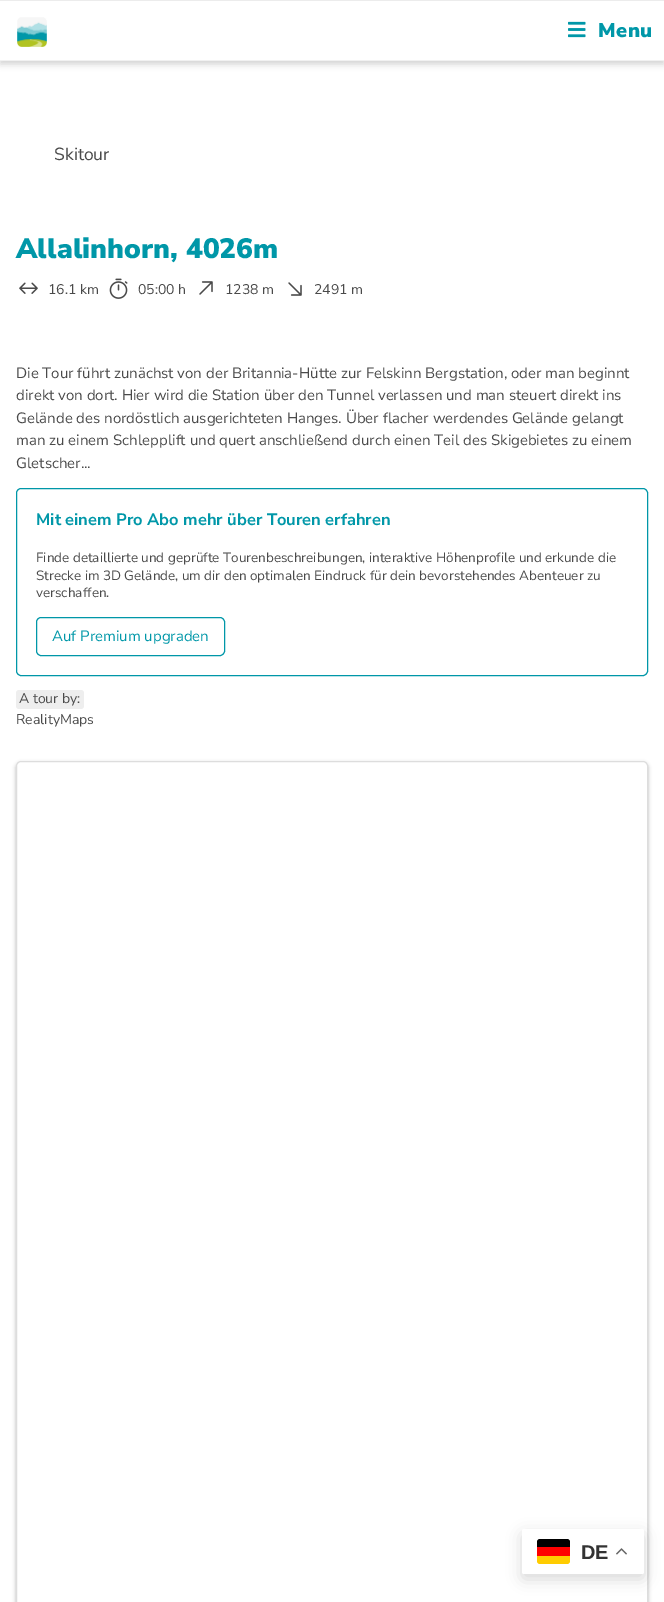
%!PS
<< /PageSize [664 1602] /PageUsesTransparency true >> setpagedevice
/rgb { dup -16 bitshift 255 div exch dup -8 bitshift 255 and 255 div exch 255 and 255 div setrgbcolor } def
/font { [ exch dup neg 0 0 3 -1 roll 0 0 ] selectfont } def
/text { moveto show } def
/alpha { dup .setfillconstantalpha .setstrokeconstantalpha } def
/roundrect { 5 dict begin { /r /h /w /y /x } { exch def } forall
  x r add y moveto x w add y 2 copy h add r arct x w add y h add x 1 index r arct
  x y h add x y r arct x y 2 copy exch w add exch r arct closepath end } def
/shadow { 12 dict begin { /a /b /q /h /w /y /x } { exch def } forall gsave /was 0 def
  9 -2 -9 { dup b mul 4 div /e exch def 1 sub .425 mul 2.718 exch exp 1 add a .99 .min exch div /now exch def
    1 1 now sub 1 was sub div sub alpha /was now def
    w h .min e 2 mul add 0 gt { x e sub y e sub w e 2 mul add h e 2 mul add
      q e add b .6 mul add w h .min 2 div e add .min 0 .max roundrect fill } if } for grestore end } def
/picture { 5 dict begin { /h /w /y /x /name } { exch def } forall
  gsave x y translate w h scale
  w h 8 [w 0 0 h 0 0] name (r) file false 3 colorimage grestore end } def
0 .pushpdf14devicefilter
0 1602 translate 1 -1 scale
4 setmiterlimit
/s1 { /NunitoSans-Regular 17.5 font 16#4A4A4A rgb } def
/s2 { /NunitoSans-Black 28 font 16#0097A8 rgb } def
/s3 { /NunitoSans-Regular 14 font 16#4A4A4A rgb } def
/s4 { /NunitoSans-Regular 15 font 16#4A4A4A rgb } def
/s5 { /NunitoSans-Bold 16.5 font 16#0097A8 rgb } def
/s6 { /NunitoSans-Regular 13.5 font 16#4A4A4A rgb } def
/s7 { /NunitoSans-Regular 15 font 16#0097A8 rgb } def
/s8 { /LiberationSans-Bold 20 font 16#333333 rgb } def
16#FFFFFF rgb
0 0 664 1602 rectfill
16#F1F1F1 rgb
0 0 664 1 rectfill
gsave
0 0 moveto 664 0 lineto 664 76 lineto 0 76 lineto closepath 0 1 moveto 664 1 lineto 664 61 lineto 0 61 lineto closepath eoclip newpath
16#D0D0D0 rgb
0 4 664 60 0 3.5 1 shadow
grestore
0 60 664 1 rectfill
(pic1.raw) 17 17 30 30 picture
(pic2.raw) 568 21 18 17 picture
/NunitoSans-Black 20 font
16#0097A8 rgb
598 37 moveto 0.5 0 (Menu) ashow
s1
(Skitour) 54 160 text
s2
(Allalinhorn, 4026m) 16 258 text
(pic3.raw) 19 282 19 12 picture
s3
(16.1 km) 48 294 text
(pic4.raw) 109 278 19 21 picture
(05:00 h) 138 294 text
(pic5.raw) 199 281 14 14 picture
(1238 m) 225 294 text
(pic6.raw) 288 282 14 14 picture
(2491 m) 314 294 text
s4
(Die Tour führt zunächst von der Britannia-Hütte zur Felskinn Bergstation, oder man beginnt) 16 378 text
(direkt von dort. Hier wird die Station über den Tunnel verlassen und man steuert direkt ins) 16 400 text
(Gelände des nordöstlich ausgerichteten Hanges. Über flacher werdendes Gelände gelangt) 16 423 text
(man zu einem Schlepplift und quert anschließend durch einen Teil des Skigebietes zu einem) 16 445 text
(Gletscher...) 16 468 text
16#0097A8 rgb
16.5 488.5 631 187 4.5 roundrect stroke
s5
(Mit einem Pro Abo mehr über Touren erfahren) 36 525 text
s6
(Finde detaillierte und geprüfte Tourenbeschreibungen, interaktive Höhenprofile und erkunde die) 36 562 text
(Strecke im 3D Gelände, um dir den optimalen Eindruck für dein bevorstehendes Abenteuer zu) 36 580 text
(verschaffen.) 36 597 text
16#0097A8 rgb
36.5 617.5 188 38 4.5 roundrect stroke
s7
(Auf Premium upgraden) 52 641 text
16#EEEEEE rgb
16 690 68 19 3 roundrect fill
s3
(A tour by:) 19 703 text
(RealityMaps) 16 724 text
gsave
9 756 moveto 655 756 lineto 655 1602 lineto 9 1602 lineto closepath 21 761 moveto 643 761 lineto 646 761 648 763 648 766 curveto 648 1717 lineto 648 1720 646 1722 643 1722 curveto 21 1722 lineto 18 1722 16 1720 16 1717 curveto 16 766 lineto 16 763 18 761 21 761 curveto closepath eoclip newpath
16#000000 rgb
16 763 632 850 5 2 0.3 shadow
grestore
16#DDDDDD rgb
16.5 761.5 631 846 4.5 roundrect stroke
16#000000 rgb
522 1534 122 45 2 7.5 0.15 shadow
16#FFFFFF rgb
522 1529 122 45 2 roundrect fill
16#FFCC00 rgb
537 1556 moveto 570 1556 lineto 570 1561 lineto 570 1562.5 568.5 1564 567 1564 curveto 540 1564 lineto 538.5 1564 537 1562.5 537 1561 curveto closepath fill
16#000000 rgb
540 1539 moveto 567 1539 lineto 568.5 1539 570 1540.5 570 1542 curveto 570 1547 lineto 537 1547 lineto 537 1542 lineto 537 1540.5 538.5 1539 540 1539 curveto closepath fill
16#FF0000 rgb
537 1547 33 9 rectfill
s8
(DE) 581 1559 text
(pic7.raw) 616 1548 11 7 picture
.poppdf14devicefilter showpage
